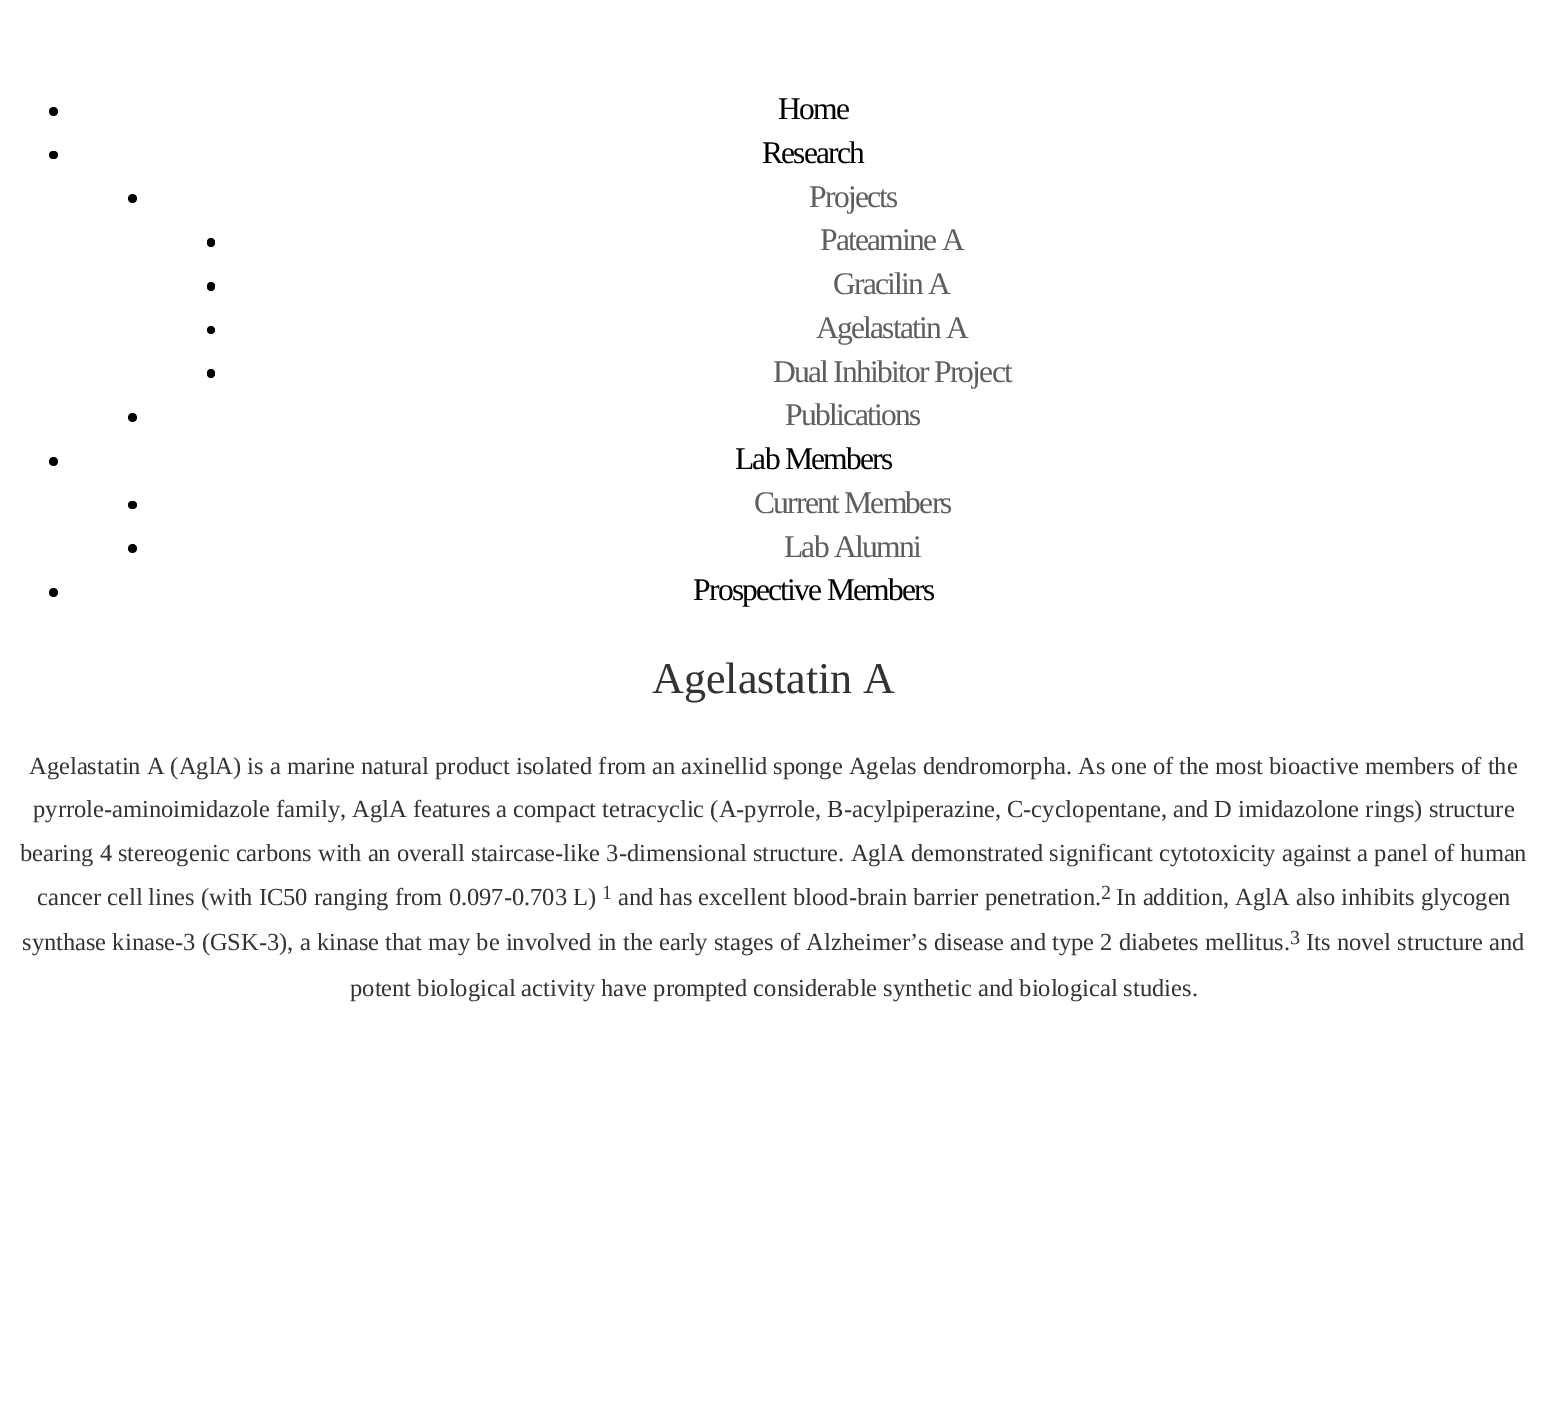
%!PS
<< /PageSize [1546 1428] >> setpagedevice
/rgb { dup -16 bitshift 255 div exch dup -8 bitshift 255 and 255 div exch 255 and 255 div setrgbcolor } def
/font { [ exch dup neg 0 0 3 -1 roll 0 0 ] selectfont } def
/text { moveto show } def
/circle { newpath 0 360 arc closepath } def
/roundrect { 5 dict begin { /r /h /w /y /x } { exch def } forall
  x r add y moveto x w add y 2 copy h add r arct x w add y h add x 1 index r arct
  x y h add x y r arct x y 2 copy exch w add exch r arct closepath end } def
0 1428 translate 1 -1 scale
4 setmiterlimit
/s1 { /LiberationSerif-Regular 44 font 16#333333 rgb } def
/s2 { /LiberationSerif-Regular 24.5 font 16#333333 rgb } def
/s3 { /LiberationSerif-Regular 20 font 16#333333 rgb } def
16#FFFFFF rgb
0 0 1546 1428 rectfill
16#000000 rgb
53.5 111.5 4.5 circle fill
/LiberationSerif-Regular 31.5 font
778 119 moveto -1.75 0 (Home) ashow
49 151 9 8 4 roundrect fill
762 163 moveto -1.75 0 (Research) ashow
132.5 198.5 4.5 circle fill
16#5E5E5E rgb
809 207 moveto -1.75 0 (Projects) ashow
16#000000 rgb
207 238 8 9 4 roundrect fill
16#5E5E5E rgb
820 250 moveto -1.75 0 (Pateamine A) ashow
16#000000 rgb
207 282 8 9 4 roundrect fill
16#5E5E5E rgb
833 294 moveto -1.75 0 (Gracilin A) ashow
16#000000 rgb
211 330 4 circle fill
16#5E5E5E rgb
816 338 moveto -1.75 0 (Agelastatin A) ashow
16#000000 rgb
207 369 8 9 4 roundrect fill
16#5E5E5E rgb
773 382 moveto -1.75 0 (Dual Inhibitor Project) ashow
16#000000 rgb
132.5 417.5 4.5 circle fill
16#5E5E5E rgb
785 425 moveto -1.75 0 (Publications) ashow
16#000000 rgb
53.5 461.5 4.5 circle fill
735 469 moveto -1.75 0 (Lab Members) ashow
128 501 9 8 4 roundrect fill
16#5E5E5E rgb
754 513 moveto -1.75 0 (Current Members) ashow
16#000000 rgb
132.5 548.5 4.5 circle fill
16#5E5E5E rgb
784 557 moveto -1.75 0 (Lab Alumni) ashow
16#000000 rgb
53.5 592.5 4.5 circle fill
693 600 moveto -1.75 0 (Prospective Members) ashow
s1
(Agelastatin A) 652 693 text
s2
(Agelastatin A \(AglA\) is a marine natural product isolated from an axinellid sponge Agelas dendromorpha. As one of the most bioactive members of the) 29 774 text
(pyrrole-aminoimidazole family, AglA features a compact tetracyclic \(A-pyrrole, B-acylpiperazine, C-cyclopentane, and D imidazolone rings\) structure) 33 817 text
(bearing 4 stereogenic carbons with an overall staircase-like 3-dimensional structure. AglA demonstrated significant cytotoxicity against a panel of human) 20 861 text
(cancer cell lines \(with IC50 ranging from 0.097-0.703 L\)) 37 905 text
s3
(1) 602 899 text
s2
(and has excellent blood-brain barrier penetration.) 618 905 text
s3
(2) 1101 899 text
s2
(In addition, AglA also inhibits glycogen) 1116 905 text
(synthase kinase-3 \(GSK-3\), a kinase that may be involved in the early stages of Alzheimer’s disease and type 2 diabetes mellitus.) 22 950 text
s3
(3) 1290 944 text
s2
(Its novel structure and) 1306 950 text
(potent biological activity have prompted considerable synthetic and biological studies.) 350 996 text
showpage
